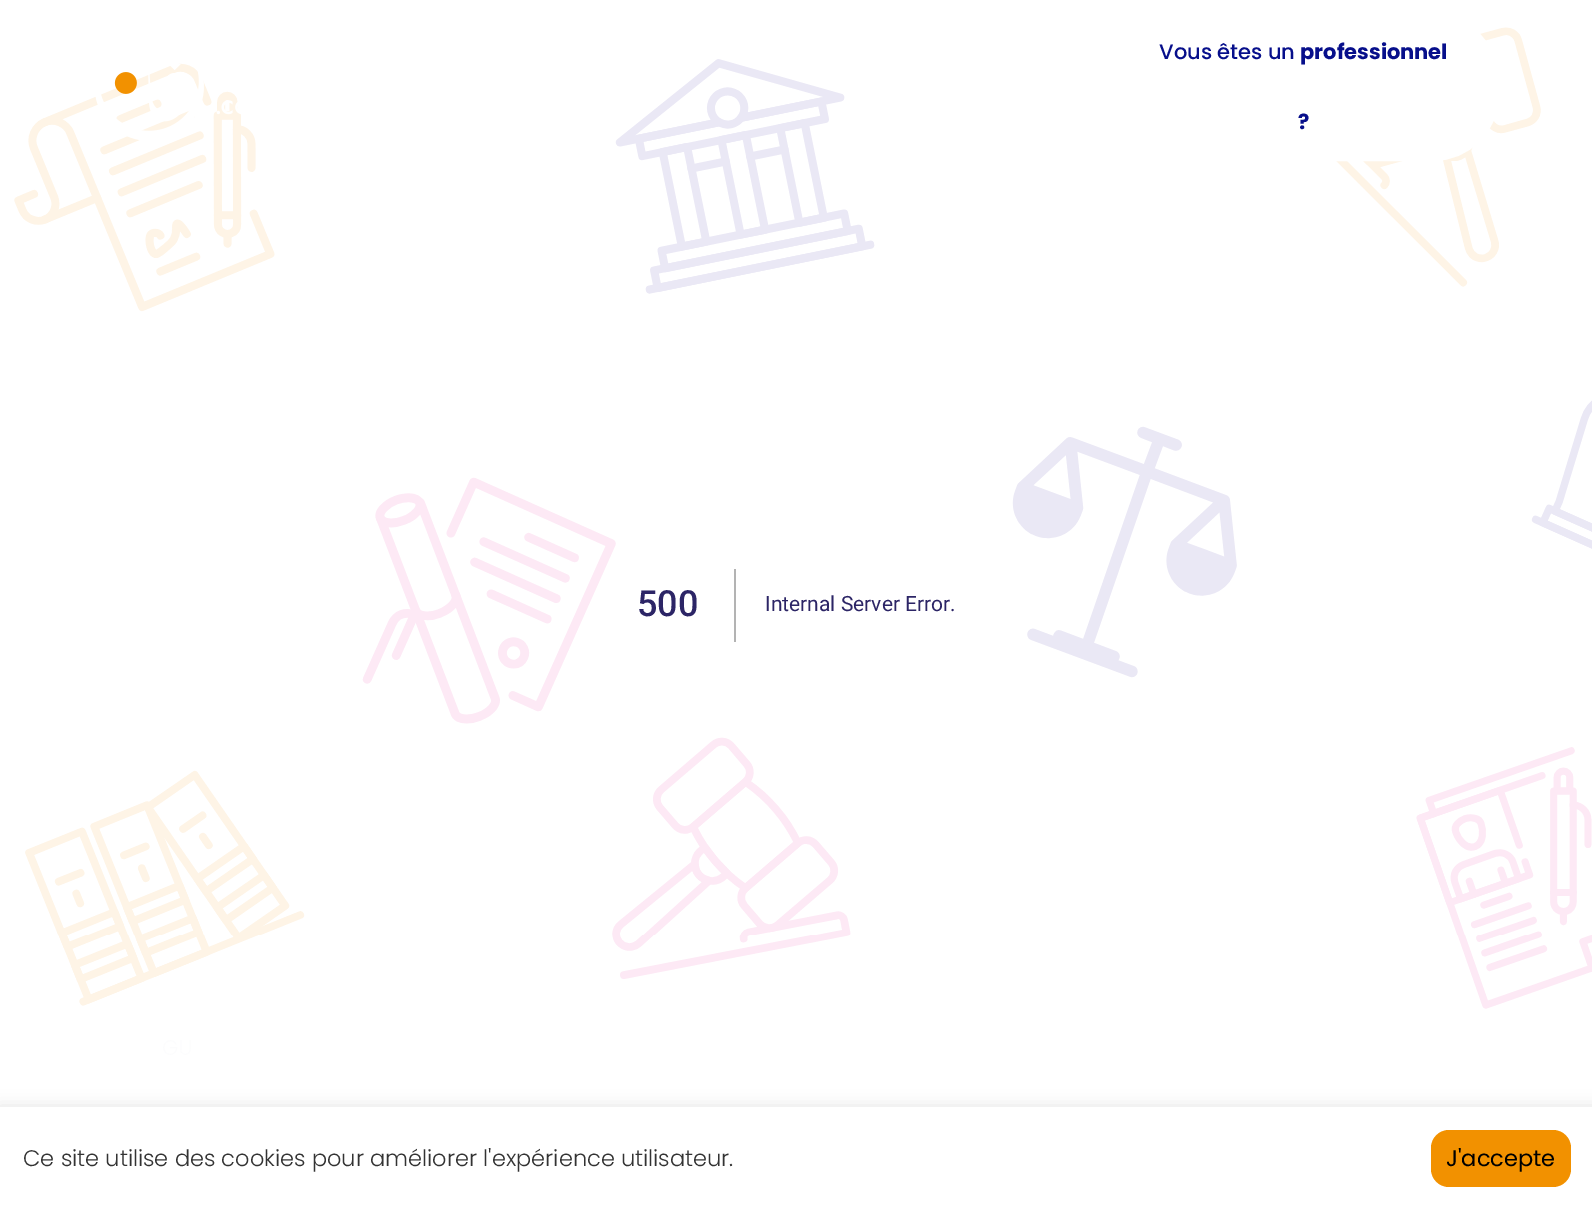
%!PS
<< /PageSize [1592 1208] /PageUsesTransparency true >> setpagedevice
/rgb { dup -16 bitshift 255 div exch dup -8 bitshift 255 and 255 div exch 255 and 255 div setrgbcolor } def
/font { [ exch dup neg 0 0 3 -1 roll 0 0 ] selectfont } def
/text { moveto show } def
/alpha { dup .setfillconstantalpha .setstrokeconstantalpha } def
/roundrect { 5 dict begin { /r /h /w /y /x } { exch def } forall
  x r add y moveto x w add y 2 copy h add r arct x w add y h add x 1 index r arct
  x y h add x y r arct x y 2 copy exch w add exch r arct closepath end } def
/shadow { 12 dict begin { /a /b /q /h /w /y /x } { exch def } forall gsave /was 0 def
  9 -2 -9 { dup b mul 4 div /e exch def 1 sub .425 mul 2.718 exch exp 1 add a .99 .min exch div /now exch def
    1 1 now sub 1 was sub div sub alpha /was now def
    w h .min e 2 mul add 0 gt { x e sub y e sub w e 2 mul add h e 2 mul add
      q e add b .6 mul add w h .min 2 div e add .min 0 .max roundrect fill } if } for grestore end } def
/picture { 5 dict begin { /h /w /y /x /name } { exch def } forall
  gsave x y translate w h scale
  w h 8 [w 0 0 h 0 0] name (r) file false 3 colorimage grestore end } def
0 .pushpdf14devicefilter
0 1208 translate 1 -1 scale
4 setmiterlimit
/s1 { /Poppins-Medium 21 font 16#070F8B rgb } def
/s2 { /Poppins-Bold 21 font 16#070F8B rgb } def
/s3 { /Roboto-Medium 36 font 16#2C2566 rgb } def
/s4 { /Roboto-Regular 21 font 16#2C2566 rgb } def
/s5 { /Poppins-Light 22.5 font 16#333333 rgb } def
/s6 { /Poppins-Regular 22.5 font 16#000000 rgb } def
16#FFFFFF rgb
0 0 1592 1208 rectfill
(pic1.raw) 14 27 1578 1028 picture
(pic2.raw) 95 64 146 76 picture
1110.5 15.5 387 144 64.5 roundrect gsave fill grestore
3 setlinewidth
stroke
s1
(Vous êtes un) 1159 59 text
s2
(professionnel) 1300 59 text
(?) 1298 129 text
16#B3B3B3 rgb
734 569 2 73 rectfill
s3
(500) 637 616 text
s4
(Internal Server Error.) 765 611 text
16#000000 rgb
-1 1106 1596 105 0 7.5 0.1 shadow
16#FFFFFF rgb
0 1107 1592 101 rectfill
s5
(Ce site utilise des cookies pour améliorer l'expérience utilisateur.) 23 1166 text
16#F29100 rgb
1431 1130 140 57 18 roundrect fill
s6
(J'accepte) 1446 1166 text
.poppdf14devicefilter showpage
